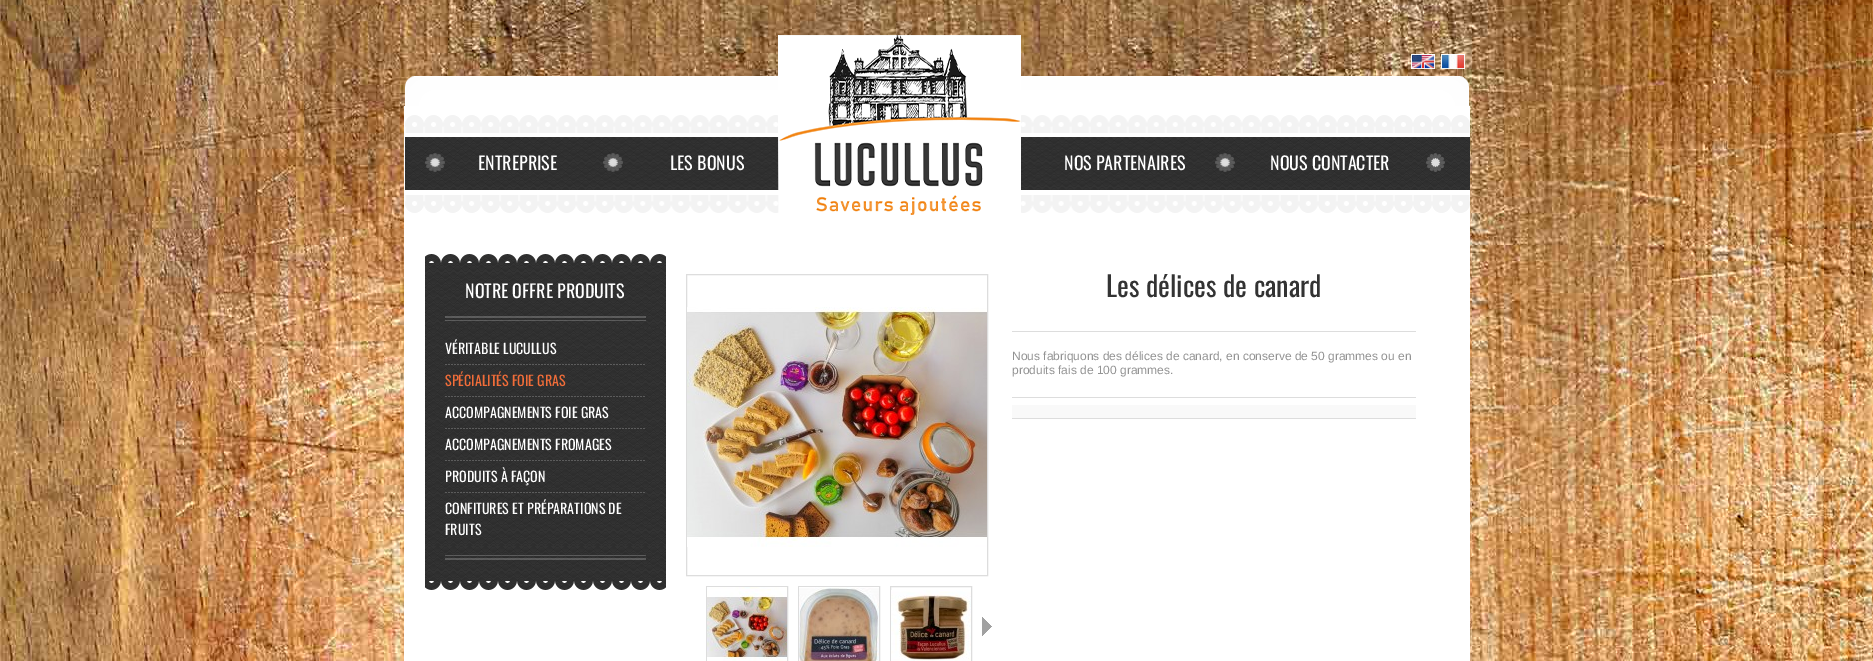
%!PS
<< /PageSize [1873 661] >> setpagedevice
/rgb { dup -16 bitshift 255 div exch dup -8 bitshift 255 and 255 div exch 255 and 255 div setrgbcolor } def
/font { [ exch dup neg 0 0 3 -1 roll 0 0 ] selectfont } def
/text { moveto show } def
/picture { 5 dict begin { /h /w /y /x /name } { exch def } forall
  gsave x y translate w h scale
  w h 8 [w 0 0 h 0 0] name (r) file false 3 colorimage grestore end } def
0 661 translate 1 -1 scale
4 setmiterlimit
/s1 { /Oswald-Regular 18 font 16#FFFFFF rgb } def
/s2 { /Oswald-Regular 14 font 16#FFFFFF rgb } def
/s3 { /Oswald-Regular 14 font 16#F26D39 rgb } def
/s4 { /Oswald-Regular 28 font 16#333333 rgb } def
/s5 { /LiberationSans-Regular 12 font 16#939393 rgb } def
16#FFFFFF rgb
0 0 1873 661 rectfill
(pic1.raw) 0 0 1873 661 picture
(pic2.raw) 405 76 1064 30 picture
404 106 1066 555 rectfill
(pic6.raw) 405 115 1065 98 picture
(pic3.raw) 778 35 243 180 picture
(pic4.raw) 1411 54 24 15 picture
(pic5.raw) 1441 54 24 15 picture
(pic7.raw) 425 153 20 19 picture
s1
(ENTREPRISE) 478 170 text
(pic8.raw) 603 153 20 19 picture
(LES BONUS) 670 170 text
(NOS PARTENAIRES) 1064 170 text
(pic9.raw) 1215 153 20 19 picture
(pic10.raw) 1426 153 19 19 picture
(NOUS CONTACTER) 1270 170 text
(pic11.raw) 425 546 241 44 picture
(pic12.raw) 425 254 241 74 picture
(pic13.raw) 445 316 201 5 picture
(NOTRE OFFRE PRODUITS) 465 298 text
(pic14.raw) 425 328 241 218 picture
(pic15.raw) 445 364 200 1 picture
s2
(VÉRITABLE LUCULLUS) 445 354 text
(pic16.raw) 445 396 200 1 picture
s3
(SPÉCIALITÉS FOIE GRAS) 445 386 text
(pic17.raw) 445 428 200 1 picture
s2
(ACCOMPAGNEMENTS FOIE GRAS) 445 418 text
(pic18.raw) 445 460 200 1 picture
(ACCOMPAGNEMENTS FROMAGES) 445 450 text
(pic19.raw) 445 492 200 1 picture
(PRODUITS À FAÇON) 445 482 text
(CONFITURES ET PRÉPARATIONS DE) 445 514 text
(FRUITS) 445 535 text
16#DDDDDD rgb
686.5 274.5 301 301 rectstroke
(pic20.raw) 687 307 300 240 picture
706.5 586.5 81 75 rectstroke
(pic21.raw) 707 587 80 74 picture
798.5 586.5 81 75 rectstroke
(pic22.raw) 799 587 80 74 picture
890.5 586.5 81 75 rectstroke
(pic23.raw) 891 590 80 71 picture
(pic24.raw) 982 617 10 19 picture
s4
(Les délices de canard) 1106 297 text
16#DDDDDD rgb
1012 331 404 1 rectfill
s5
(Nous fabriquons des délices de canard, en conserve de 50 grammes ou en) 1012 360 text
(produits fais de 100 grammes.) 1012 374 text
16#F9F9F9 rgb
1012 405 404 13 rectfill
16#DDDDDD rgb
1012 397 404 1 rectfill
1012 418 404 1 rectfill
showpage
